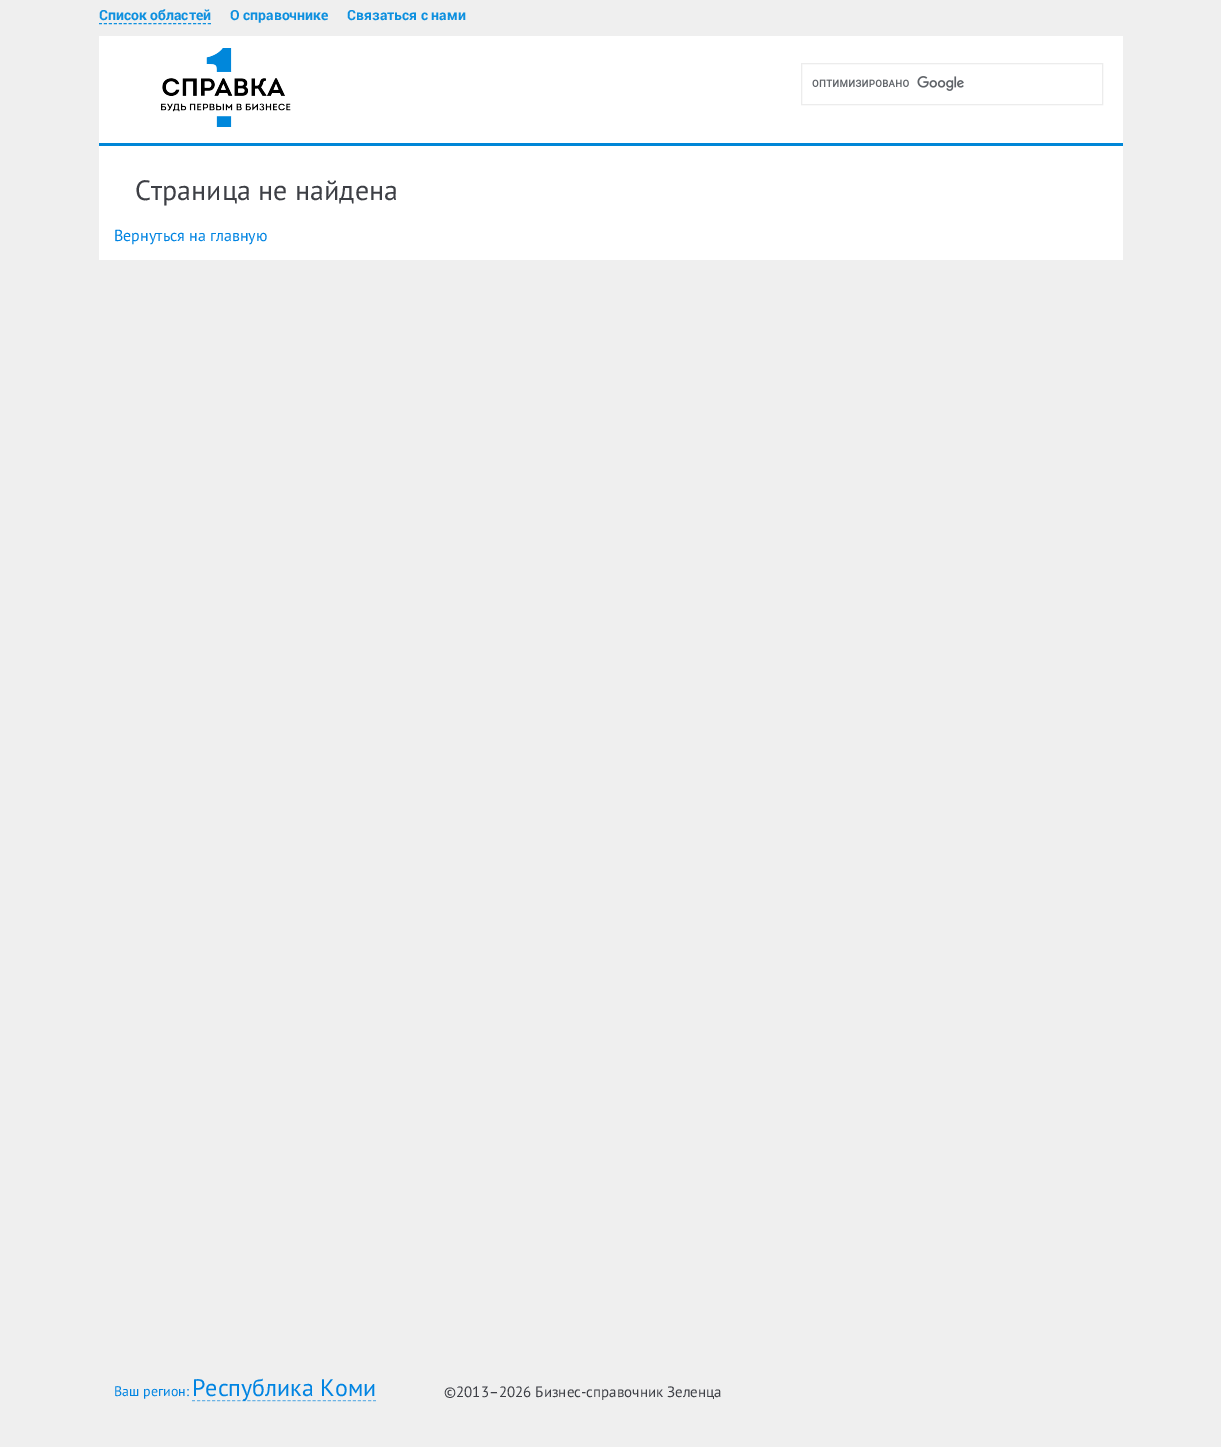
%!PS
<< /PageSize [1221 1447] >> setpagedevice
/rgb { dup -16 bitshift 255 div exch dup -8 bitshift 255 and 255 div exch 255 and 255 div setrgbcolor } def
/font { [ exch dup neg 0 0 3 -1 roll 0 0 ] selectfont } def
/text { moveto show } def
/picture { 5 dict begin { /h /w /y /x /name } { exch def } forall
  gsave x y translate w h scale
  w h 8 [w 0 0 h 0 0] name (r) file false 3 colorimage grestore end } def
0 1447 translate 1 -1 scale
4 setmiterlimit
/s1 { /Roboto-Bold 14 font 16#0E90DF rgb } def
/s2 { /PTSans-Regular 28 font 16#3D3F45 rgb } def
/s3 { /PTSans-Regular 16 font 16#0084E2 rgb } def
/s4 { /PTSans-Regular 14 font 16#0084E2 rgb } def
/s5 { /PTSans-Regular 24 font 16#0084E2 rgb } def
/s6 { /PTSans-Regular 15 font 16#3D3F45 rgb } def
16#EFEFEF rgb
0 0 1221 1447 rectfill
16#0E90DF rgb
[3 1.95] 0 setdash
99 23.5 moveto 211 23.5 lineto stroke
s1
(Список областей) 99 20 text
(О справочнике) 230 20 text
(Связаться с нами) 347 20 text
16#FFFFFF rgb
99 36 1024 107 rectfill
16#ECECEC rgb
[] 0 setdash
801.5 63.5 301 41 rectstroke
(pic1.raw) 812 76 152 15 picture
16#0086D7 rgb
99 143 1024 3 rectfill
(pic2.raw) 161 48 130 79 picture
16#FFFFFF rgb
99 146 1024 114 rectfill
s2
(Страница не найдена) 135 200 text
s3
(Вернуться на главную) 114 241 text
s4
(Ваш регион:) 114 1396 text
16#6EB4E5 rgb
[3 2.03] 0 setdash
192 1400.5 moveto 376 1400.5 lineto stroke
s5
(Республика Коми) 192 1396 text
s6
(©2013–2026 Бизнес-справочник Зеленца) 444 1397 text
showpage
